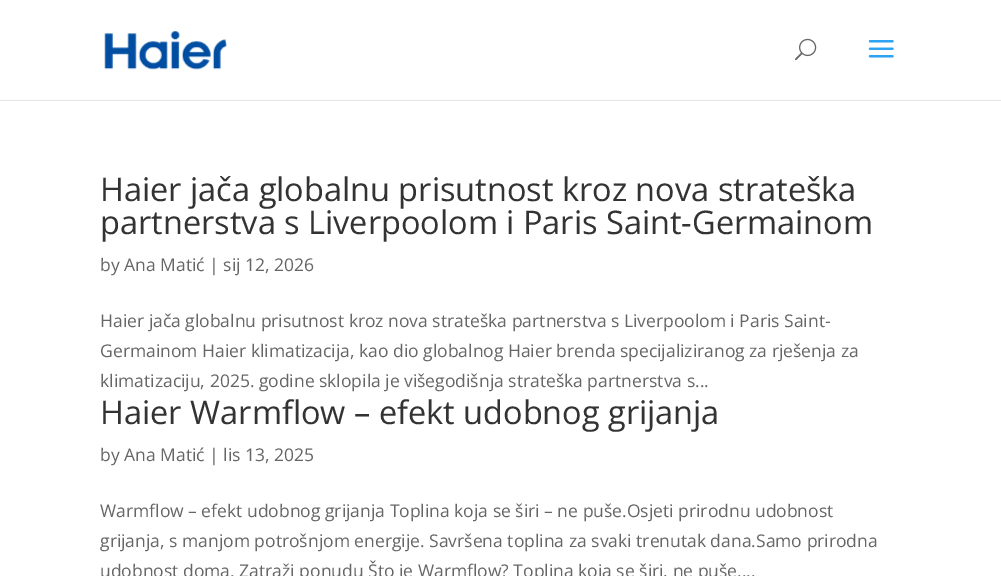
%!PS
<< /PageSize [1001 576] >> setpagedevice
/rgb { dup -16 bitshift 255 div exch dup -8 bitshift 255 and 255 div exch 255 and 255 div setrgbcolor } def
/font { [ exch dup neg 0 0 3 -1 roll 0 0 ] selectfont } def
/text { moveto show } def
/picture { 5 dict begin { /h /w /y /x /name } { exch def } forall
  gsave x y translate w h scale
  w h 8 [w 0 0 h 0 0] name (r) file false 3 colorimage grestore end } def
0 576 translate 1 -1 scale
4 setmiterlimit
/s1 { /OpenSans-Regular 32.5 font 16#333333 rgb } def
/s2 { /OpenSans-Regular 17.5 font 16#666666 rgb } def
16#FFFFFF rgb
0 0 1001 576 rectfill
16#E6E6E6 rgb
0 100 1001 1 rectfill
(pic1.raw) 104 31 123 39 picture
(pic2.raw) 795 38 22 23 picture
(pic3.raw) 868 40 26 18 picture
s1
(Haier jača globalnu prisutnost kroz nova strateška) 100 201 text
(partnerstva s Liverpoolom i Paris Saint-Germainom) 100 234 text
s2
(by Ana Matić | sij 12, 2026) 100 271 text
(Haier jača globalnu prisutnost kroz nova strateška partnerstva s Liverpoolom i Paris Saint-) 100 327 text
(Germainom Haier klimatizacija, kao dio globalnog Haier brenda specijaliziranog za rješenja za) 100 357 text
(klimatizaciju, 2025. godine sklopila je višegodišnja strateška partnerstva s...) 100 387 text
s1
(Haier Warmflow – efekt udobnog grijanja) 100 424 text
s2
(by Ana Matić | lis 13, 2025) 100 461 text
(Warmflow – efekt udobnog grijanja Toplina koja se širi – ne puše.Osjeti prirodnu udobnost) 100 517 text
(grijanja, s manjom potrošnjom energije. Savršena toplina za svaki trenutak dana.Samo prirodna) 100 547 text
(udobnost doma. Zatraži ponudu Što je Warmflow? Toplina koja se širi, ne puše....) 100 577 text
showpage
